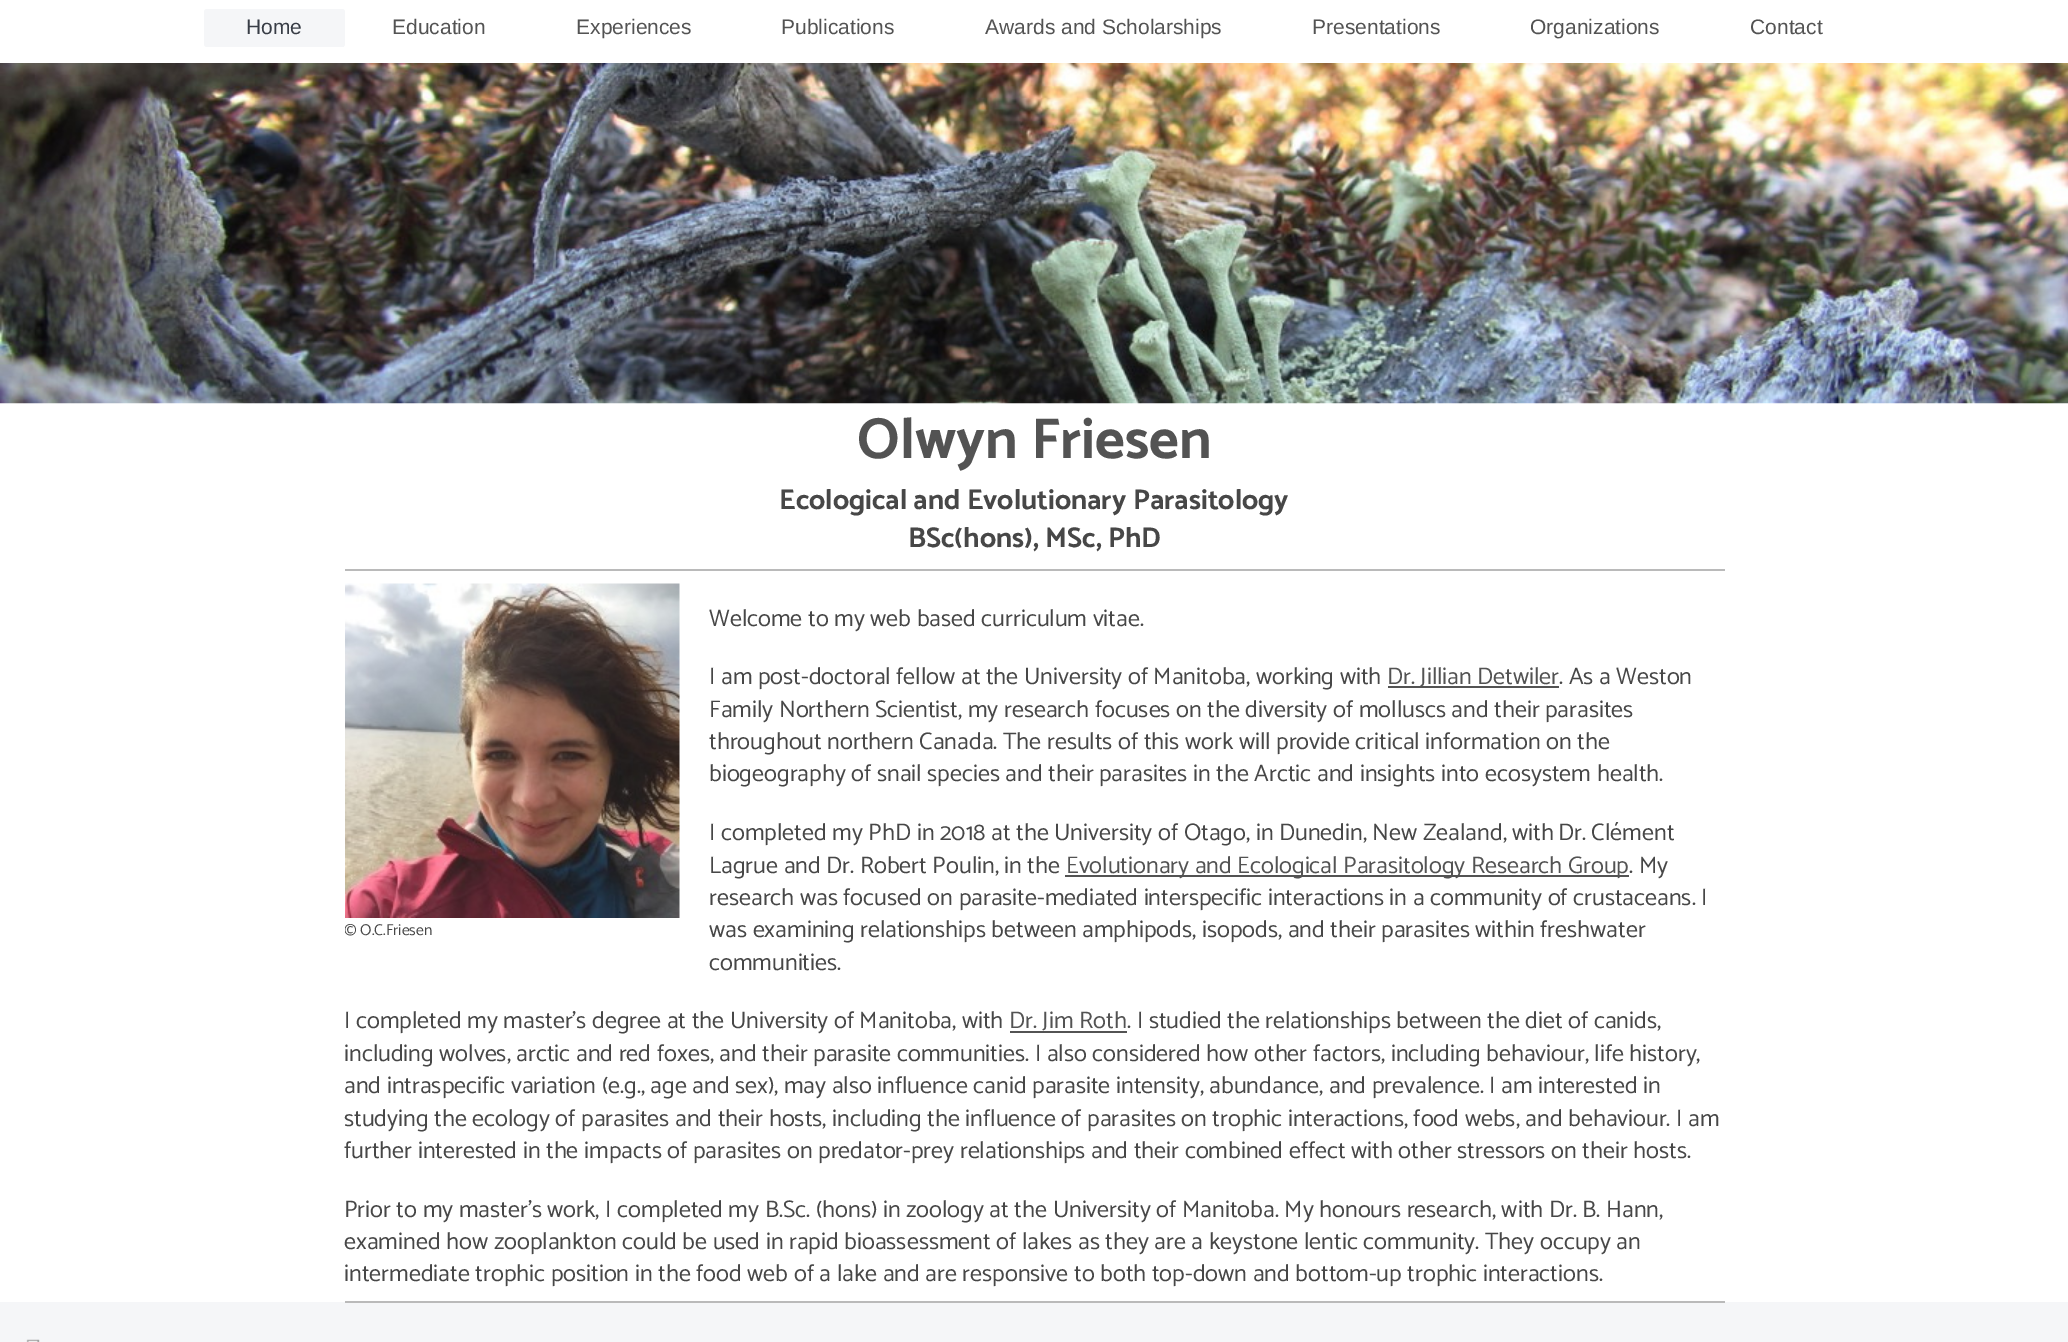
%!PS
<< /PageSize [2068 1342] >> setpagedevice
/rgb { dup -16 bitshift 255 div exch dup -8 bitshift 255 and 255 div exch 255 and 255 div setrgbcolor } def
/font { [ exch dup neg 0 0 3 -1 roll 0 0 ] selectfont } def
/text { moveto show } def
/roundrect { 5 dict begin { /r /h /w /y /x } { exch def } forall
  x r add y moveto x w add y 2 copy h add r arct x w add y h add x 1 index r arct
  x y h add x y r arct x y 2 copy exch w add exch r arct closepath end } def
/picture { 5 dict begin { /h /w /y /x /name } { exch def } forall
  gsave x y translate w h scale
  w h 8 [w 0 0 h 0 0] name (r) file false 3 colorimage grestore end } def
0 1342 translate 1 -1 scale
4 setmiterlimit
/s1 { /LiberationSans-Regular 21 font 16#383D46 rgb } def
/s2 { /LiberationSans-Regular 21 font 16#535353 rgb } def
/s3 { /Catamaran-Bold 57.75 font 16#535353 rgb } def
/s4 { /Catamaran-Bold 28.5 font 16#474747 rgb } def
/s5 { /Catamaran-Regular 24 font 16#474747 rgb } def
/s6 { /Catamaran-Regular 24 font 16#535353 rgb } def
/s7 { /Catamaran-Regular 15.75 font 16#474747 rgb } def
16#F5F6F8 rgb
0 0 2068 1342 rectfill
16#FFFFFF rgb
0 0 2068 63 rectfill
16#F5F6F8 rgb
204 9 141 38 3 roundrect fill
343 46 1 1 rectfill
s1
(Home) 246 34 text
s2
(Education) 392 34 text
(Experiences) 576 34 text
(Publications) 781 34 text
(Awards and Scholarships) 985 34 text
(Presentations) 1312 34 text
(Organizations) 1530 34 text
(Contact) 1750 34 text
16#FFFFFF rgb
0 403 2068 899 rectfill
(pic1.raw) 0 63 2068 341 picture
s3
(Olwyn Friesen) 857 458 text
s4
(Ecological and Evolutionary Parasitology) 779 509 text
(BSc\(hons\), MSc, PhD) 908 547 text
16#BABABA rgb
345 569 1380 2 rectfill
s5
(Welcome to my web based curriculum vitae.) 709 626 text
(I am post-doctoral fellow at the University of Manitoba, working with) 709 684 text
16#535353 rgb
1388 686 171 2 rectfill
(Dr. Jillian Detwiler) 1387 684 text
s5
(. As a Weston) 1559 684 text
(Family Northern Scientist, my research focuses on the diversity of molluscs and their parasites) 709 717 text
(throughout northern Canada. The results of this work will provide critical information on the) 709 749 text
(biogeography of snail species and their parasites in the Arctic and insights into ecosystem health.) 709 781 text
(I completed my PhD in 2018 at the University of Otago, in Dunedin, New Zealand, with) 709 840 text
(Dr. Clément) 1558 840 text
(Lagrue and Dr. Robert Poulin, in the) 709 873 text
16#535353 rgb
1065 875 564 2 rectfill
(Evolutionary and Ecological Parasitology Research Group) 1066 873 text
s5
(. My) 1629 873 text
(research was focused on parasite-mediated interspecific interactions in a community of crustaceans. I) 709 905 text
(was examining relationships between amphipods, isopods, and their parasites within freshwater) 709 937 text
(communities.) 709 970 text
(I completed my master's degree at the University of Manitoba, with) 344 1028 text
s6
(Dr. Jim Roth) 1009 1028 text
s5
(. I studied the relationships between the diet of canids,) 1127 1028 text
16#535353 rgb
1010 1031 117 2 rectfill
s5
(including wolves, arctic and red foxes, and their parasite communities. I also considered how other factors, including behaviour, life history,) 344 1061 text
(and intraspecific variation \(e.g., age and sex\), may also influence canid parasite intensity, abundance, and prevalence. I am interested in) 344 1093 text
(studying the ecology of parasites and their hosts, including the influence of parasites on trophic interactions, food webs, and behaviour. I am) 344 1126 text
(further interested in the impacts of parasites on predator-prey relationships and their combined effect with other stressors on their hosts.) 344 1158 text
(Prior to my master's work, I completed my B.Sc. \(hons\) in zoology at the University of Manitoba. My honours research, with Dr. B. Hann,) 344 1217 text
(examined how zooplankton could be used in rapid bioassessment of lakes as they are a keystone lentic community. They occupy an) 344 1249 text
(intermediate trophic position in the food web of a lake and are responsive to both top-down and bottom-up trophic interactions.) 344 1281 text
(pic2.raw) 345 583 335 335 picture
gsave
345 578 1380 714 rectclip
s7
(© O.C.Friesen) 344 935 text
grestore
16#BABABA rgb
345 1301 1380 2 rectfill
(pic3.raw) 26 1339 14 3 picture
showpage
